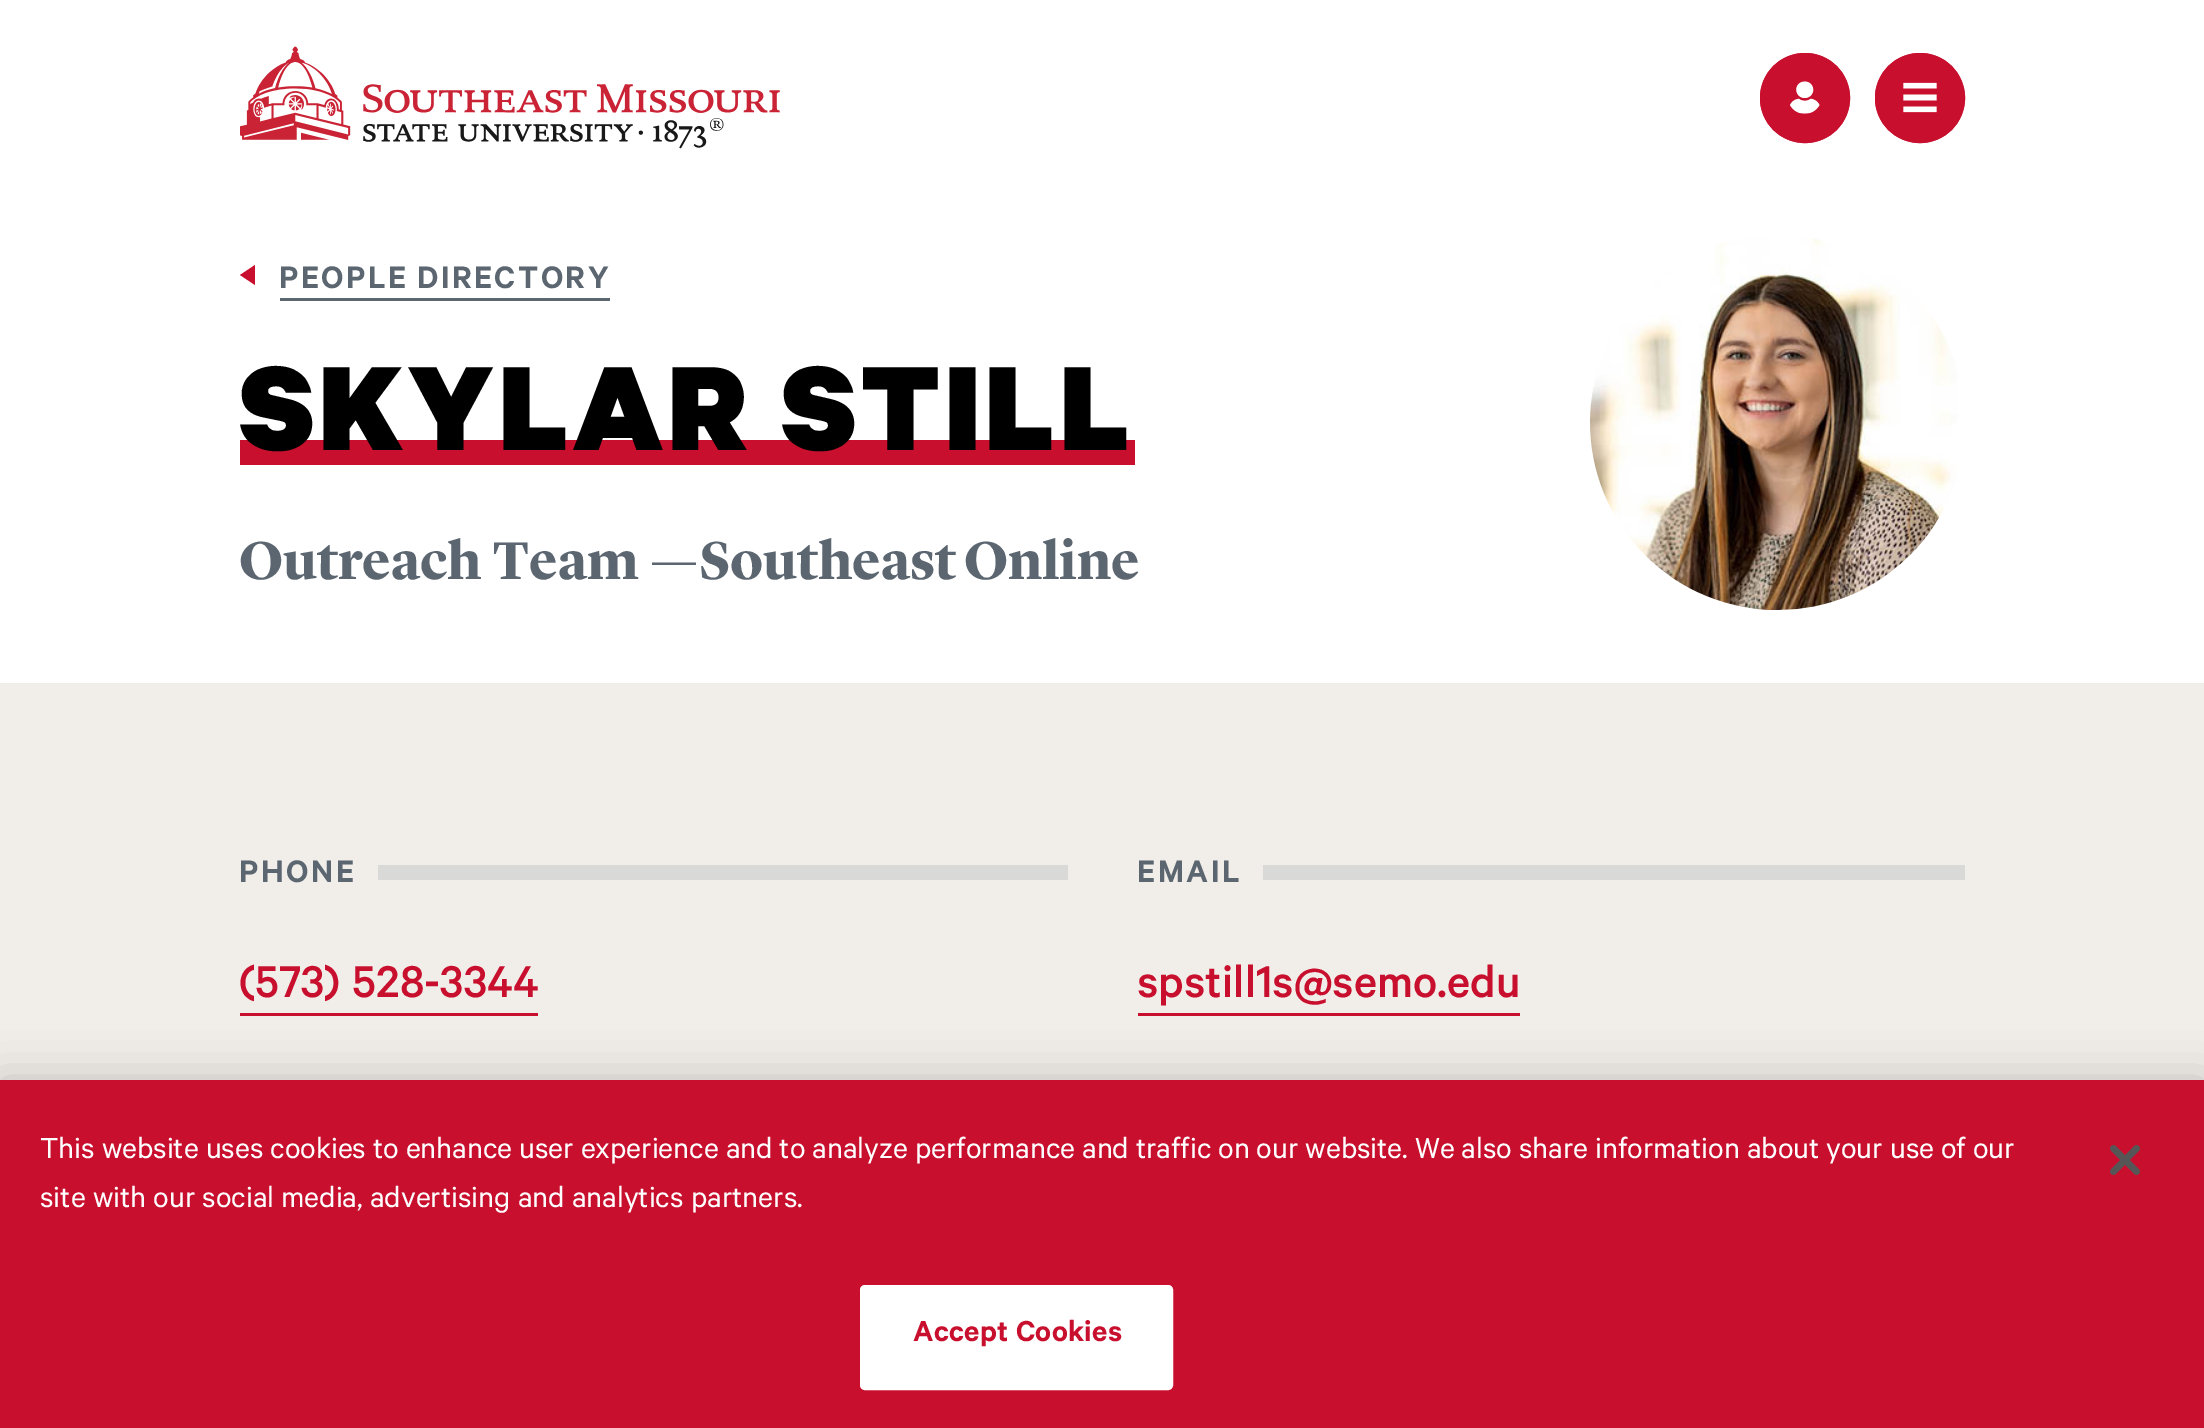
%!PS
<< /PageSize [2204 1428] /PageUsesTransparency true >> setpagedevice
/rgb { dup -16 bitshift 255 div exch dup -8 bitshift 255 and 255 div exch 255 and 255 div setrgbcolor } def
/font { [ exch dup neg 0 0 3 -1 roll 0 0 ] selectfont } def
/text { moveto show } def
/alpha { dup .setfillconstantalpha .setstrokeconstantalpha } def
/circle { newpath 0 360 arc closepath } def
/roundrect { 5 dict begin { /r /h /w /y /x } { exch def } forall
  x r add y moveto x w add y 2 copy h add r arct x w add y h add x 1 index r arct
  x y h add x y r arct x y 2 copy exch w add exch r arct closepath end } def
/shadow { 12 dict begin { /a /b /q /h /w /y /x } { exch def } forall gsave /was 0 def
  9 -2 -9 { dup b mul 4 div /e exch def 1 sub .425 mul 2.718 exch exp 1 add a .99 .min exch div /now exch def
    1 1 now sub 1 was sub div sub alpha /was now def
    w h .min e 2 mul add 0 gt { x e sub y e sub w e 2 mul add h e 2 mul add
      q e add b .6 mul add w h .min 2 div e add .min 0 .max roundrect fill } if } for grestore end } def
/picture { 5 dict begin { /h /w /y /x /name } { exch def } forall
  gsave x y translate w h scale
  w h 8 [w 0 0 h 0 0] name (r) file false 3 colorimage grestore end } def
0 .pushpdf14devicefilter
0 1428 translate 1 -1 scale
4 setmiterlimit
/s1 { /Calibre-Medium 50 font 16#C8102E rgb } def
/s2 { /Calibre-Regular 32.52 font 16#FFFFFF rgb } def
16#FFFFFF rgb
0 0 2204 1428 rectfill
(pic1.raw) 240 46 540 103 picture
16#C8102E rgb
8 setlinewidth
1805 98 41 circle stroke
1805 98 45 circle fill
(pic2.raw) 1790 81 30 33 picture
1920 98 41 circle stroke
1920 98 45 circle fill
(pic3.raw) 1903 82 34 31 picture
255 265 moveto 255 285 lineto 240 275 lineto closepath fill
16#5B6670 rgb
280 298 330 3 rectfill
/Calibre-SemiBold 35 font
279 288 moveto -2 0 32 2.5 0 (PEOPLE DIRECTORY) awidthshow
16#C8102E rgb
240 440 895 25 rectfill
/Calibre-Black 135 font
16#000000 rgb
239 450 moveto -1 0 32 5 0 (SKYLAR STILL) awidthshow
/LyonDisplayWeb-Bold 55 font
16#5B6670 rgb
239 579 moveto 2 0 32 (Outreach Team —) widthshow
699 579 moveto -2 0 32 (Southeast Online) widthshow
(pic4.raw) 1590 238 368 372 picture
16#F1EEEA rgb
0 683 2204 397 rectfill
/Calibre-SemiBold 35 font
16#5B6670 rgb
239 882 moveto 2.5 0 (PHONE) ashow
16#D9DAD8 rgb
378 865 690 15 rectfill
/Calibre-Medium 50 font
16#C8102E rgb
239 997 moveto 1 0 32 (\(573\) 528-3344) widthshow
240 1013 298 3 rectfill
/Calibre-SemiBold 35 font
16#5B6670 rgb
1137 882 moveto 2.5 0 (EMAIL) ashow
16#D9DAD8 rgb
1263 865 702 15 rectfill
s1
(spstill1s@semo.edu) 1137 997 text
1138 1013 382 3 rectfill
16#000000 rgb
0 1080 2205 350 0 22.5 0.2 shadow
16#C8102E rgb
0 1080 2204 348 rectfill
/Calibre-Regular 32.52 font
16#FFFFFF rgb
40 1158 moveto -0.25 0 32 (This website uses cookies to enhance user experience and to analyze performance and traffic on our website. We also share information about your use of our) widthshow
(site with our social media, advertising and analytics partners.) 40 1207 text
861.5 1286.5 310 102 3.5 roundrect gsave fill grestore
3 setlinewidth
stroke
/Calibre-SemiBold 32.52 font
16#C8102E rgb
913 1341 moveto 0.3 0 (Accept Cookies) ashow
(pic5.raw) 2110 1145 30 30 picture
.poppdf14devicefilter showpage
